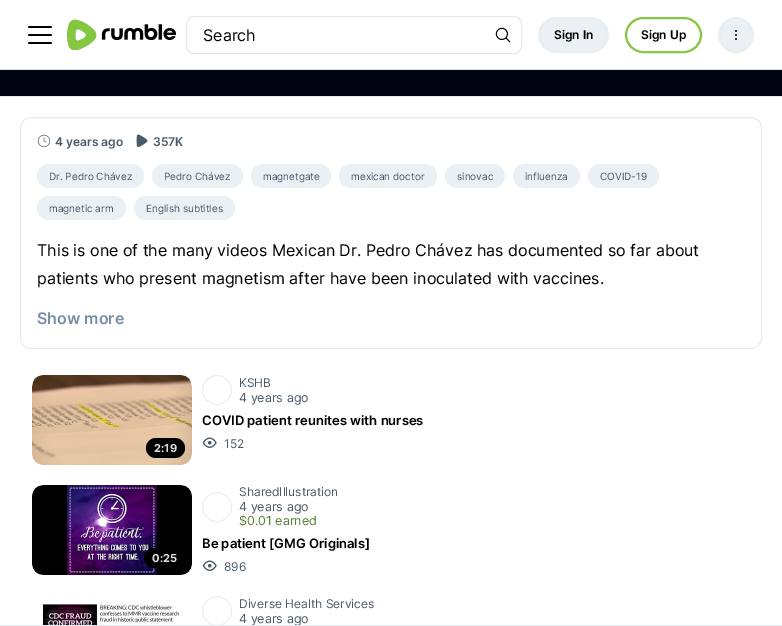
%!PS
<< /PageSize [782 626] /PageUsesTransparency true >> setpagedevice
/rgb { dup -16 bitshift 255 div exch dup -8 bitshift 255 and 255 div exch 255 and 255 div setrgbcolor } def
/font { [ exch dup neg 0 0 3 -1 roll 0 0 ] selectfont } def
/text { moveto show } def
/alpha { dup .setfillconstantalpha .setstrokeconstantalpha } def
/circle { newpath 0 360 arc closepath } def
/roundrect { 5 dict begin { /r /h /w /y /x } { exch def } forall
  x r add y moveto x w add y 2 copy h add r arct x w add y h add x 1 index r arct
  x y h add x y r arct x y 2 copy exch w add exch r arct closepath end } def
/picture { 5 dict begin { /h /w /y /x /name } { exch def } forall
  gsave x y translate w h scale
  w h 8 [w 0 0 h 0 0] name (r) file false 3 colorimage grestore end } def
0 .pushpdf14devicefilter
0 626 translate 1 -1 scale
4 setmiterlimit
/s1 { /Inter-Regular 16 font 16#000000 rgb } def
/s2 { /Inter-SemiBold 12 font 16#000000 rgb } def
/s3 { /Inter-SemiBold 12 font 16#495A6A rgb } def
/s4 { /Inter-Regular 10 font 16#495A6A rgb } def
/s5 { /Inter-SemiBold 16 font 16#788FA5 rgb } def
/s6 { /Inter-Bold 11 font 16#DDDDDD rgb } def
/s7 { /Inter-Regular 12 font 16#495A6A rgb } def
/s8 { /Inter-Regular 12.5 font 16#495A6A rgb } def
/s9 { /Inter-SemiBold 13 font 16#000000 rgb } def
/s10 { /Inter-Regular 12.5 font 16#587F33 rgb } def
16#FFFFFF rgb
0 0 782 626 rectfill
16#D6E0EA rgb
0 69 782 1 rectfill
(pic1.raw) 28 26 24 18 picture
(pic2.raw) 66 19 31 31 picture
(pic3.raw) 101 24 76 17 picture
16#E4E8EC rgb
186.5 16.5 335 37 7.5 roundrect stroke
s1
(Search) 203 41 text
(pic4.raw) 495 27 16 16 picture
16#EBF0F5 rgb
540 19 67 32 16 roundrect fill
0.5 alpha
16#D6E0EA rgb
2 setlinewidth
539 18 69 34 17 roundrect stroke
1 alpha
s2
(Sign In) 554 39 text
16#85C742 rgb
626 18 75 34 17 roundrect stroke
s2
(Sign Up) 641 39 text
16#EBF0F5 rgb
736 35 16 circle fill
0.5 alpha
16#D6E0EA rgb
736 35 17 circle stroke
1 alpha
(pic5.raw) 735 30 2 10 picture
16#E6ECF2 rgb
0 96 782 1 rectfill
16#010413 rgb
0 70 782 26 rectfill
16#E6ECF2 rgb
1 setlinewidth
20.5 117.5 741 231 10.5 roundrect stroke
(pic6.raw) 37 134 14 14 picture
s3
(4 years ago) 55 146 text
(pic7.raw) 136 134 12 14 picture
(357K) 153 146 text
16#EBF0F5 rgb
37 164 107 24 12 roundrect fill
s4
(Dr. Pedro Chávez) 49 180 text
16#EBF0F5 rgb
152 164 91 24 12 roundrect fill
s4
(Pedro Chávez) 164 180 text
16#EBF0F5 rgb
251 164 80 24 12 roundrect fill
s4
(magnetgate) 263 180 text
16#EBF0F5 rgb
339 164 98 24 12 roundrect fill
s4
(mexican doctor) 351 180 text
16#EBF0F5 rgb
445 164 60 24 12 roundrect fill
s4
(sinovac) 457 180 text
16#EBF0F5 rgb
513 164 67 24 12 roundrect fill
s4
(influenza) 525 180 text
16#EBF0F5 rgb
588 164 71 24 12 roundrect fill
s4
(COVID-19) 600 180 text
16#EBF0F5 rgb
37 196 89 24 12 roundrect fill
s4
(magnetic arm) 49 212 text
16#EBF0F5 rgb
134 196 101 24 12 roundrect fill
s4
(English subtitles) 146 212 text
s1
(This is one of the many videos Mexican Dr. Pedro Chávez has documented so far about) 37 256 text
(patients who present magnetism after have been inoculated with vaccines.) 37 284 text
s5
(Show more) 37 324 text
(pic8.raw) 32 375 160 90 picture
16#000000 rgb
146 438 39 20 10 roundrect fill
s6
(2:19) 154 452 text
16#EEEEEE rgb
217 390 14.5 circle stroke
s7
(KSHB) 239 387 text
s8
(4 years ago) 239 402 text
s9
(COVID patient reunites with nurses) 202 425 text
(pic9.raw) 202 437 15 11 picture
s7
(152) 224 448 text
(pic10.raw) 32 485 160 90 picture
16#000000 rgb
144 548 41 20 10 roundrect fill
s6
(0:25) 152 562 text
16#EEEEEE rgb
217 507 14.5 circle stroke
s7
(SharedIllustration) 239 496 text
s8
(4 years ago) 239 511 text
s10
($0.01 earned) 239 525 text
s9
(Be patient [GMG Originals]) 202 548 text
(pic9.raw) 202 560 15 11 picture
s7
(896) 224 571 text
(pic11.raw) 41 604 139 21 picture
16#EEEEEE rgb
217 611 14.5 circle stroke
s7
(Diverse Health Services) 239 608 text
s8
(4 years ago) 239 623 text
16#E6ECF2 rgb
0 625 782 1 rectfill
.poppdf14devicefilter showpage
